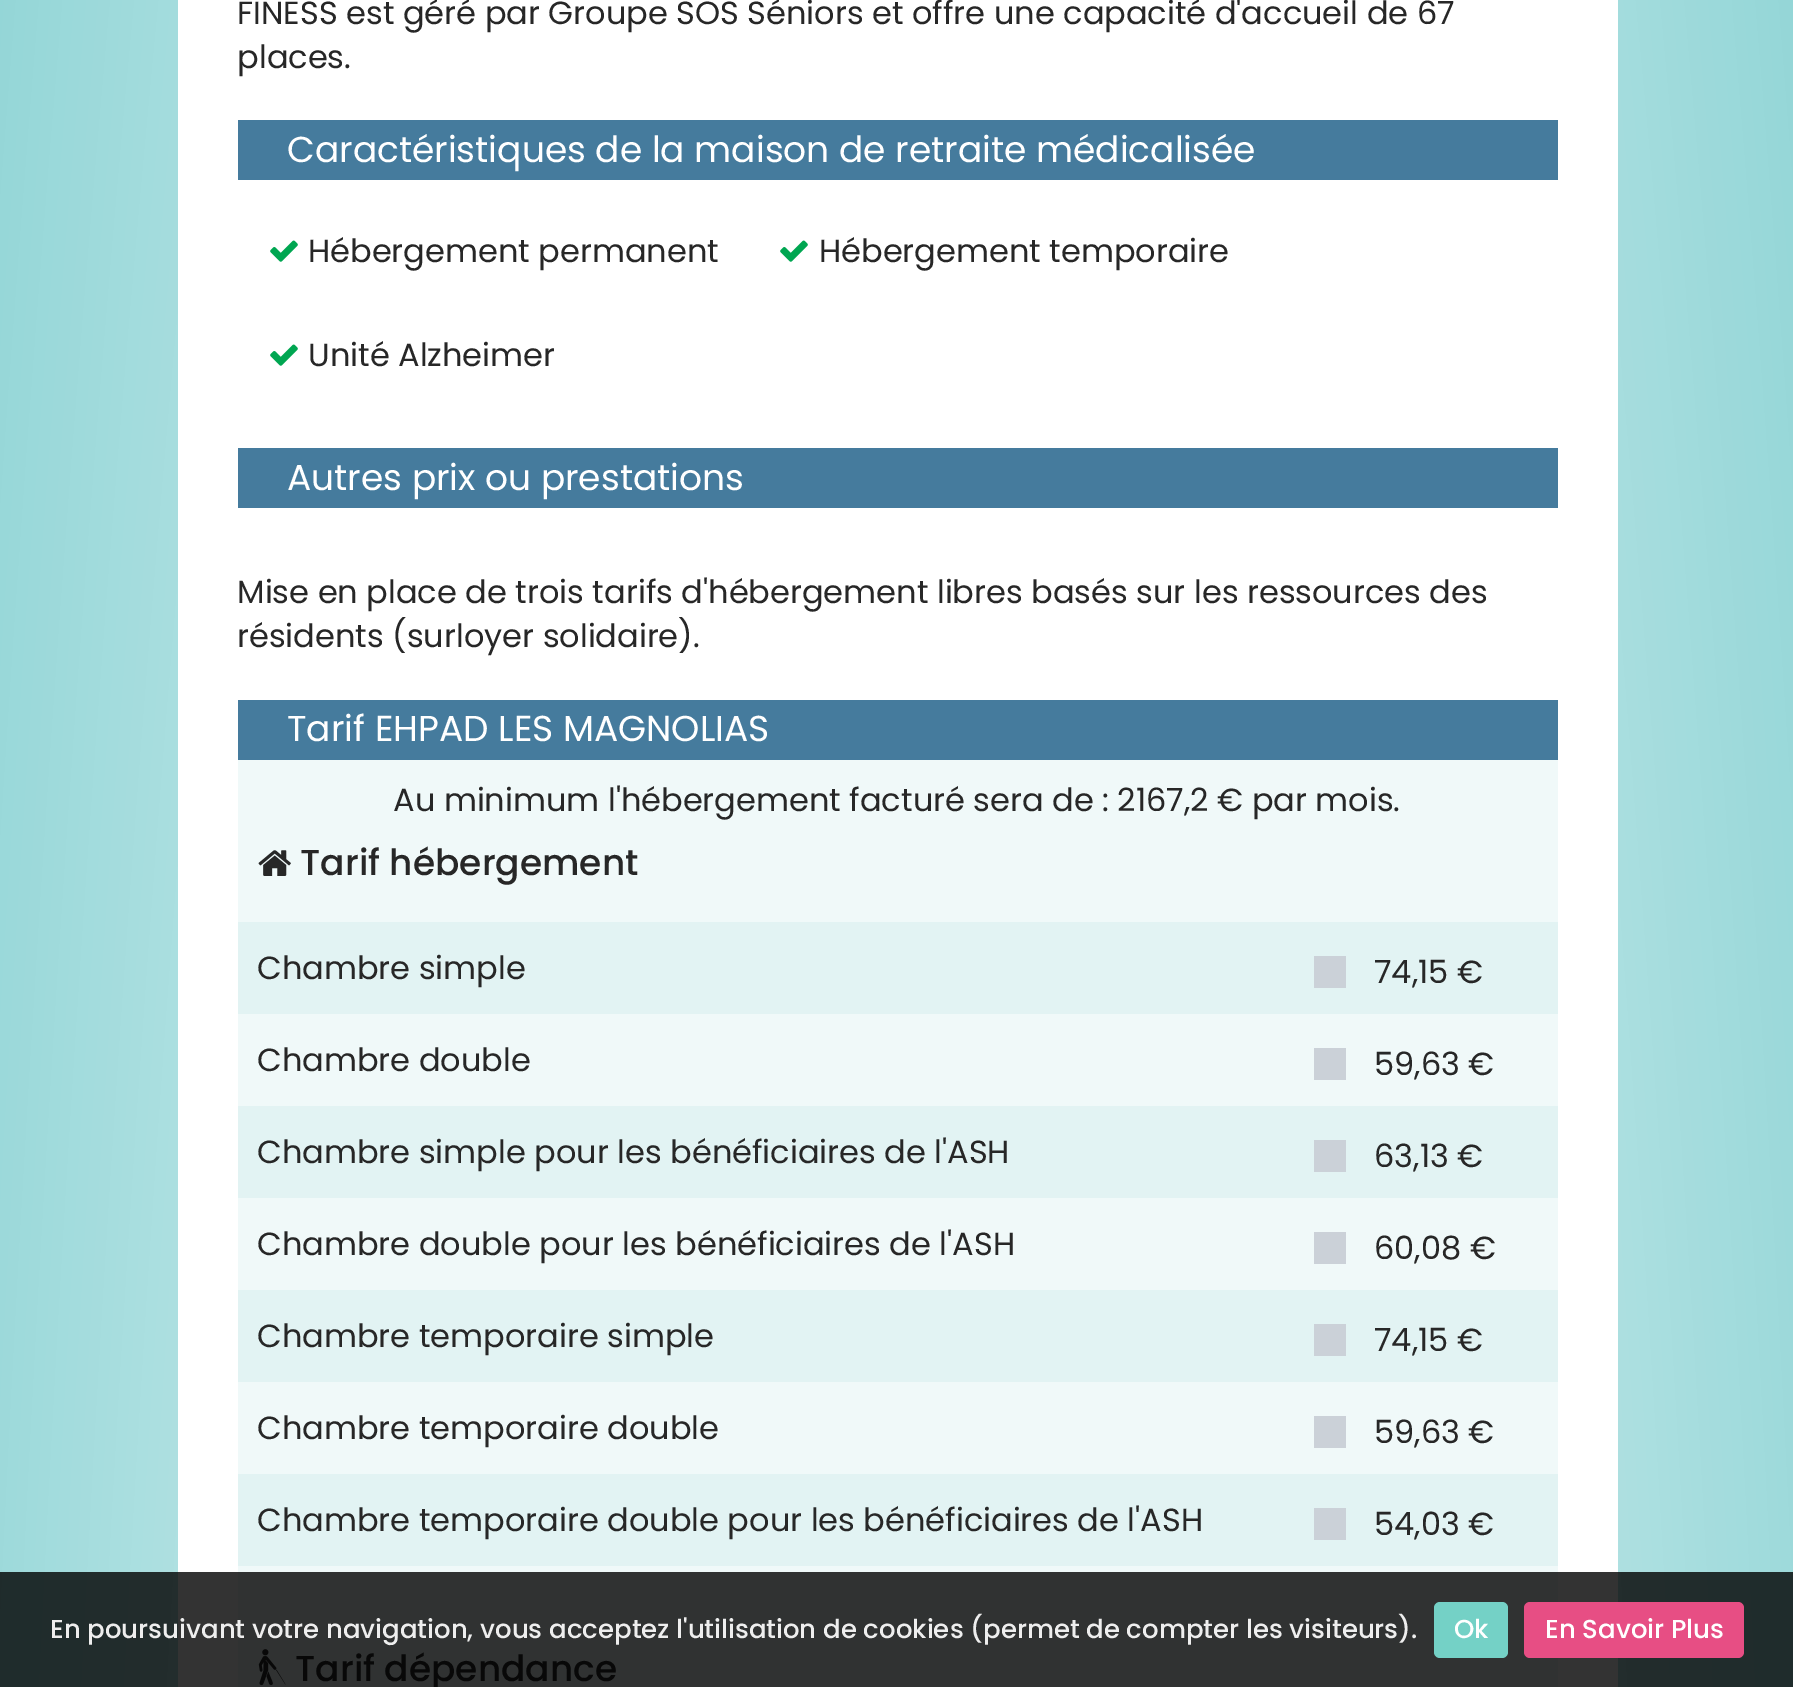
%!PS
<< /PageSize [1793 1687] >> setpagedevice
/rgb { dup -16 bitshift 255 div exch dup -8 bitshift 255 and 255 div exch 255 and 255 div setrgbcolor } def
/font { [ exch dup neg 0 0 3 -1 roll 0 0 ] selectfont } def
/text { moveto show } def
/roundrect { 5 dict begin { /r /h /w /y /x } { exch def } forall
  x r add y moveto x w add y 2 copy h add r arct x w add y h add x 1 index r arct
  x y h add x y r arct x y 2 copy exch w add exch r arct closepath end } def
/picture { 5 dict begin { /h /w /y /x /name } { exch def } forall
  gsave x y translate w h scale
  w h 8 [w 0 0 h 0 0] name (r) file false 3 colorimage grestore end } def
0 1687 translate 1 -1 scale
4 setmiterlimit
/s1 { /Poppins-Regular 32 font 16#272727 rgb } def
/s2 { /Poppins-Regular 36 font 16#FFFFFF rgb } def
/s3 { /Poppins-Medium 36 font 16#272727 rgb } def
/s4 { /Poppins-Medium 36 font 16#080808 rgb } def
/s5 { /Poppins-Medium 26 font 16#EEEEEE rgb } def
/s6 { /Poppins-Medium 26 font 16#FFFFFF rgb } def
16#FFFFFF rgb
0 0 1793 1687 rectfill
gsave 0 0 moveto 1793 0 lineto 1793 1572 lineto 0 1572 lineto closepath clip newpath 897 4001 translate 1269 9482 scale
<< /ShadingType 3 /ColorSpace /DeviceRGB /Coords [0 0 0 0 0 1] /Extend [true true] /Function << /FunctionType 2 /Domain [0 1] /C0 [1 1 1] /C1 [0.494 0.808 0.812] /N 1 >> >> shfill grestore
gsave 0 1572 moveto 1793 1572 lineto 1793 1687 lineto 0 1687 lineto closepath clip newpath 897 4001 translate 1269 9482 scale
<< /ShadingType 3 /ColorSpace /DeviceRGB /Coords [0 0 0 0 0 1] /Extend [true true] /Function << /FunctionType 2 /Domain [0 1] /C0 [0.2 0.2 0.2] /C1 [0.098 0.161 0.161] /N 1 >> >> shfill grestore
178 0 1440 1572 rectfill
16#333333 rgb
178 1572 1440 115 rectfill
s1
(FINESS est géré par Groupe SOS Séniors et offre une capacité d'accueil de 67) 237 24 text
(places.) 237 68 text
16#457B9D rgb
238 120 1320 60 rectfill
s2
(Caractéristiques de la maison de retraite médicalisée) 287 162 text
(pic1.raw) 270 240 28 22 picture
s1
(Hébergement permanent) 308 262 text
(pic1.raw) 780 240 28 22 picture
(Hébergement temporaire) 819 262 text
(pic1.raw) 270 344 28 22 picture
(Unité Alzheimer) 308 366 text
16#457B9D rgb
238 448 1320 60 rectfill
s2
(Autres prix ou prestations) 287 490 text
s1
(Mise en place de trois tarifs d'hébergement libres basés sur les ressources des) 237 603 text
(résidents \(surloyer solidaire\).) 237 647 text
16#F0F9F9 rgb
238 760 1320 812 rectfill
16#303232 rgb
238 1572 1320 115 rectfill
16#457B9D rgb
238 700 1320 60 rectfill
s2
(Tarif EHPAD LES MAGNOLIAS) 287 741 text
s1
(Au minimum l'hébergement facturé sera de : 2167,2 € par mois.) 393 811 text
(pic2.raw) 258 850 33 26 picture
s3
(Tarif hébergement) 300 875 text
16#E2F3F3 rgb
238 922 1320 92 rectfill
s1
(Chambre simple) 257 979 text
16#CBD1D8 rgb
1314 956 32 32 rectfill
s1
(74,15 €) 1374 983 text
(Chambre double) 257 1071 text
16#CBD1D8 rgb
1314 1048 32 32 rectfill
s1
(59,63 €) 1374 1075 text
16#E2F3F3 rgb
238 1106 1320 92 rectfill
s1
(Chambre simple pour les bénéficiaires de l'ASH) 257 1163 text
16#CBD1D8 rgb
1314 1140 32 32 rectfill
s1
(63,13 €) 1374 1167 text
(Chambre double pour les bénéficiaires de l'ASH) 257 1255 text
16#CBD1D8 rgb
1314 1232 32 32 rectfill
s1
(60,08 €) 1374 1259 text
16#E2F3F3 rgb
238 1290 1320 92 rectfill
s1
(Chambre temporaire simple) 257 1347 text
16#CBD1D8 rgb
1314 1324 32 32 rectfill
s1
(74,15 €) 1374 1351 text
(Chambre temporaire double) 257 1439 text
16#CBD1D8 rgb
1314 1416 32 32 rectfill
s1
(59,63 €) 1374 1443 text
16#E2F3F3 rgb
238 1474 1320 92 rectfill
s1
(Chambre temporaire double pour les bénéficiaires de l'ASH) 257 1531 text
16#CBD1D8 rgb
1314 1508 32 32 rectfill
s1
(54,03 €) 1374 1535 text
(pic3.raw) 258 1649 28 37 picture
s4
(Tarif dépendance) 295 1681 text
s5
(En poursuivant votre navigation, vous acceptez l'utilisation de cookies \(permet de compter les visiteurs\).) 50 1638 text
16#74D1C6 rgb
1434 1602 74 56 6 roundrect fill
s6
(Ok) 1454 1638 text
16#E74E84 rgb
1524 1602 220 56 6 roundrect fill
s6
(En Savoir Plus) 1545 1638 text
showpage
